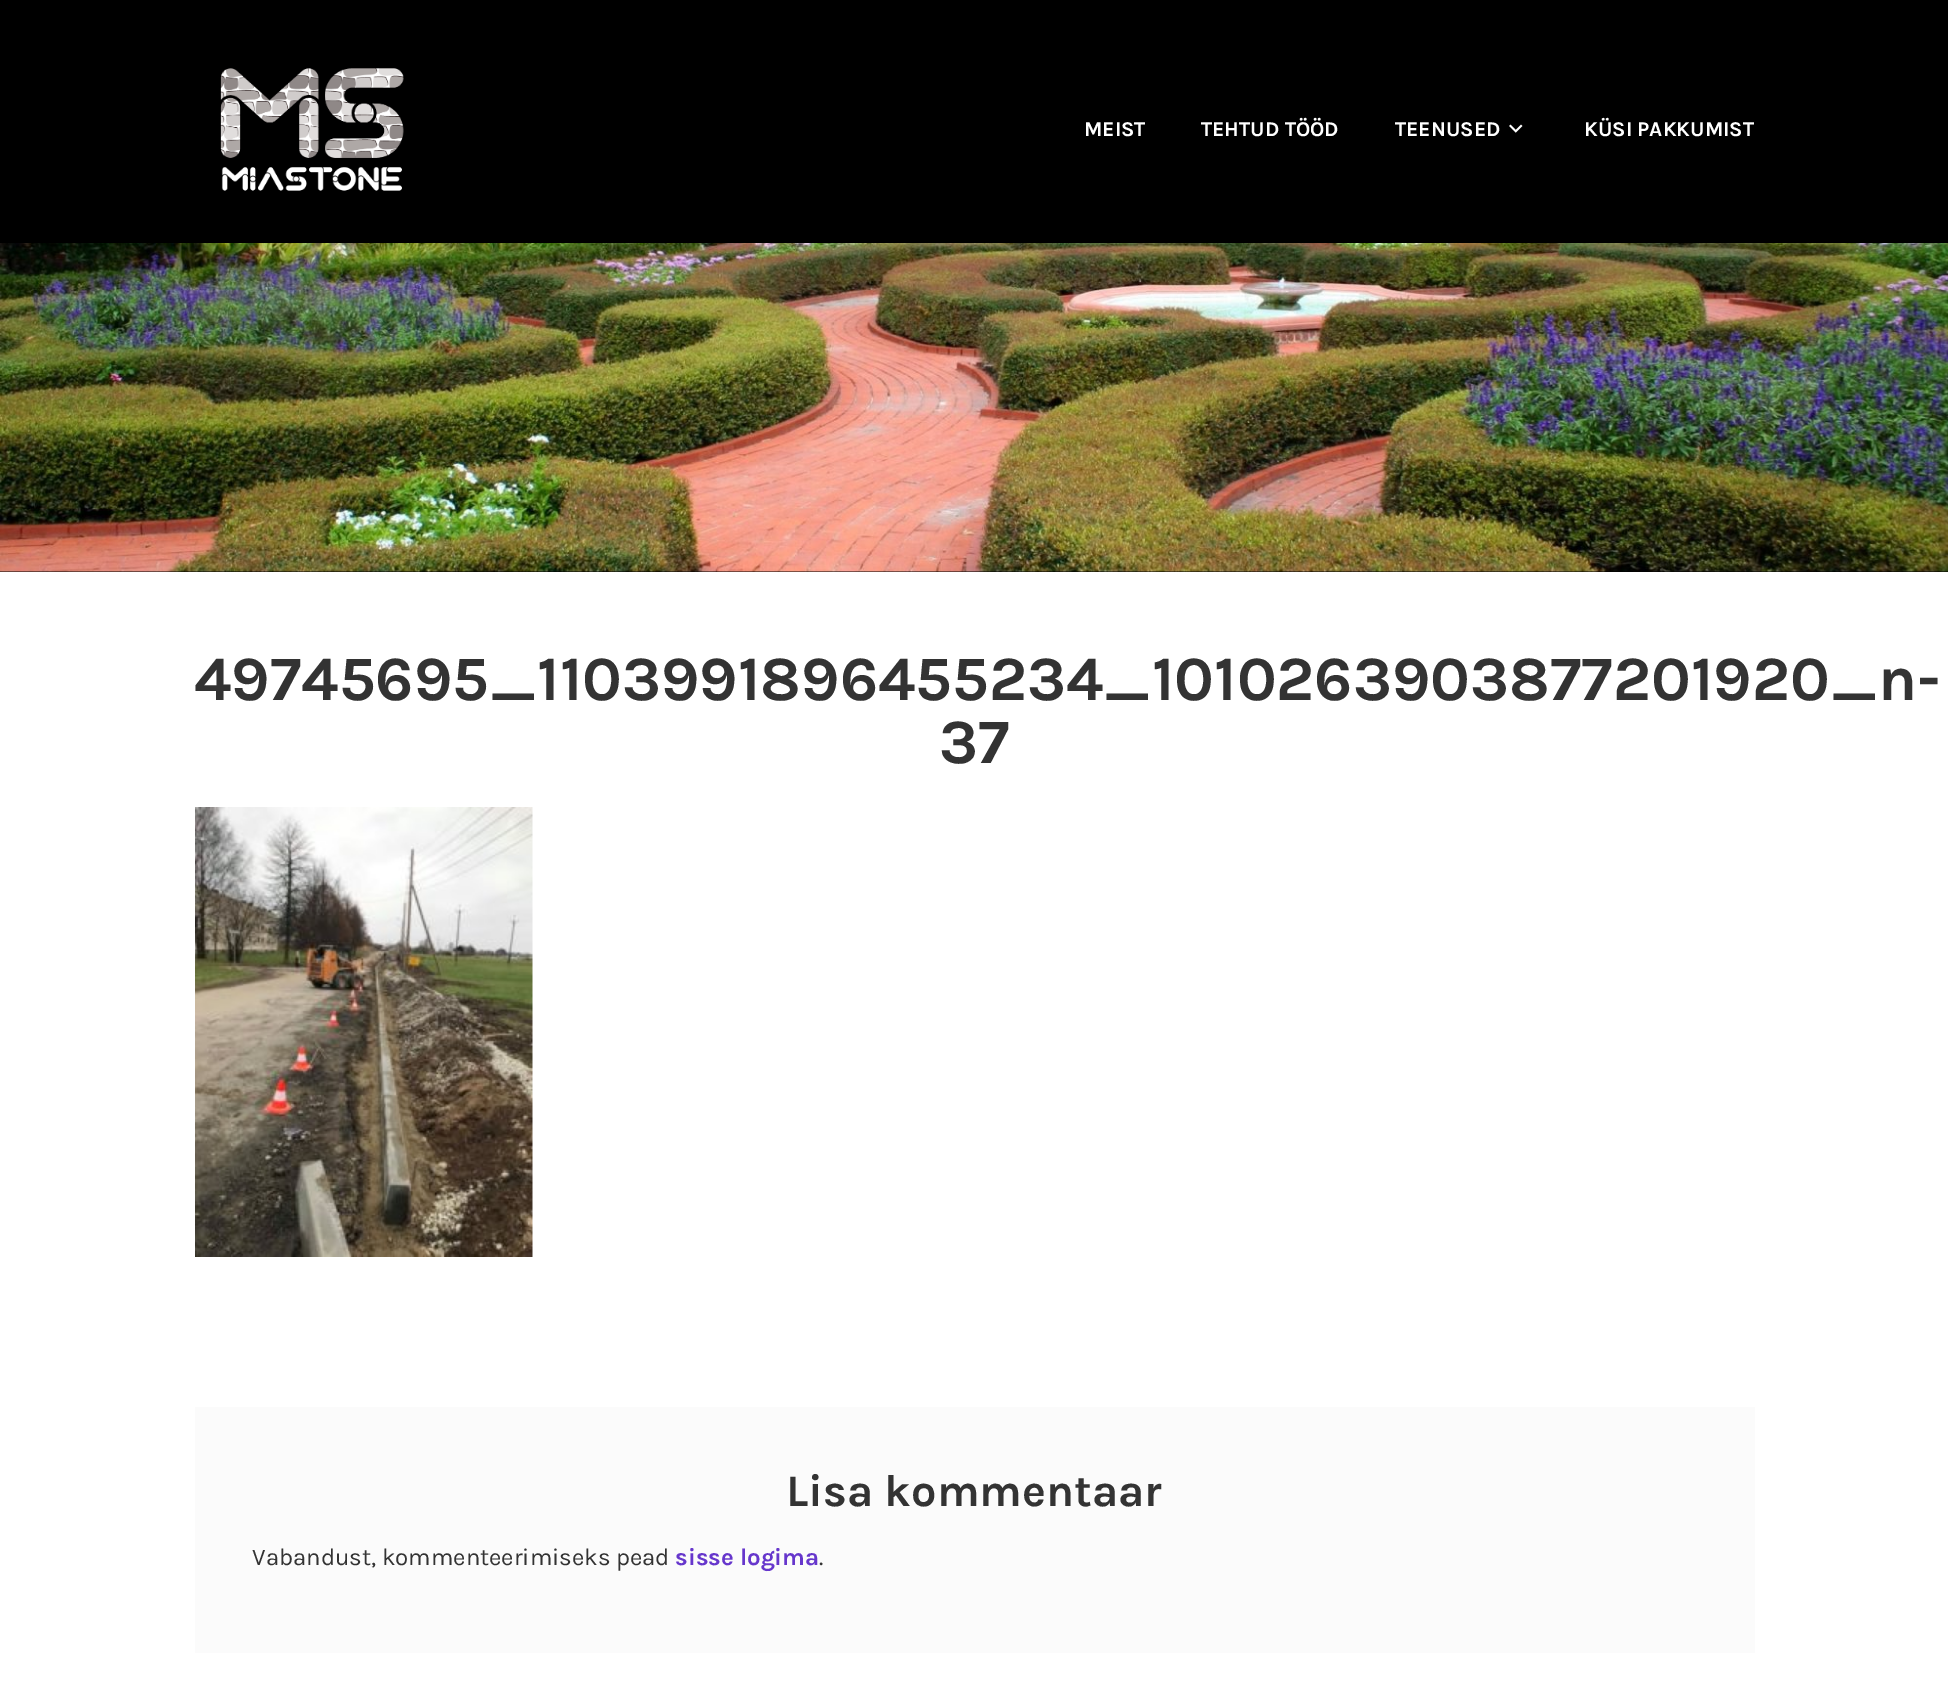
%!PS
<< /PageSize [1948 1708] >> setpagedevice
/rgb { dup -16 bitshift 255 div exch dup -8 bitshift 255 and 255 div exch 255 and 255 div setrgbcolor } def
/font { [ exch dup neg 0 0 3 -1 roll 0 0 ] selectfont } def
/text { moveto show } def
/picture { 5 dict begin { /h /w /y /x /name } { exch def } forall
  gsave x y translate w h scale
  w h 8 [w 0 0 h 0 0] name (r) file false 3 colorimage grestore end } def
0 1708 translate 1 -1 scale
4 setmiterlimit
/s1 { /Karla-Bold 21 font 16#FFFFFF rgb } def
/s2 { /Karla-Bold 63 font 16#333333 rgb } def
/s3 { /Karla-Bold 45 font 16#333333 rgb } def
/s4 { /Karla-Regular 24 font 16#333333 rgb } def
/s5 { /Karla-Bold 24 font 16#6636CC rgb } def
16#FFFFFF rgb
0 0 1948 1708 rectfill
16#000000 rgb
0 0 1948 572 rectfill
(pic1.raw) 220 68 184 123 picture
s1
(MEIST) 1084 136 text
(TEHTUD TÖÖD) 1201 136 text
(TEENUSED) 1395 136 text
(pic2.raw) 1509 124 14 9 picture
(KÜSI PAKKUMIST) 1584 136 text
(pic3.raw) 0 243 1948 329 picture
s2
(49745695_1103991896455234_1010263903877201920_n-) 194 700 text
(37) 939 763 text
(pic4.raw) 195 807 338 450 picture
16#FBFBFB rgb
195 1407 1560 246 rectfill
s3
(Lisa kommentaar) 786 1506 text
s4
(Vabandust, kommenteerimiseks pead) 252 1565 text
s5
(sisse logima) 675 1565 text
s4
(.) 819 1565 text
showpage
